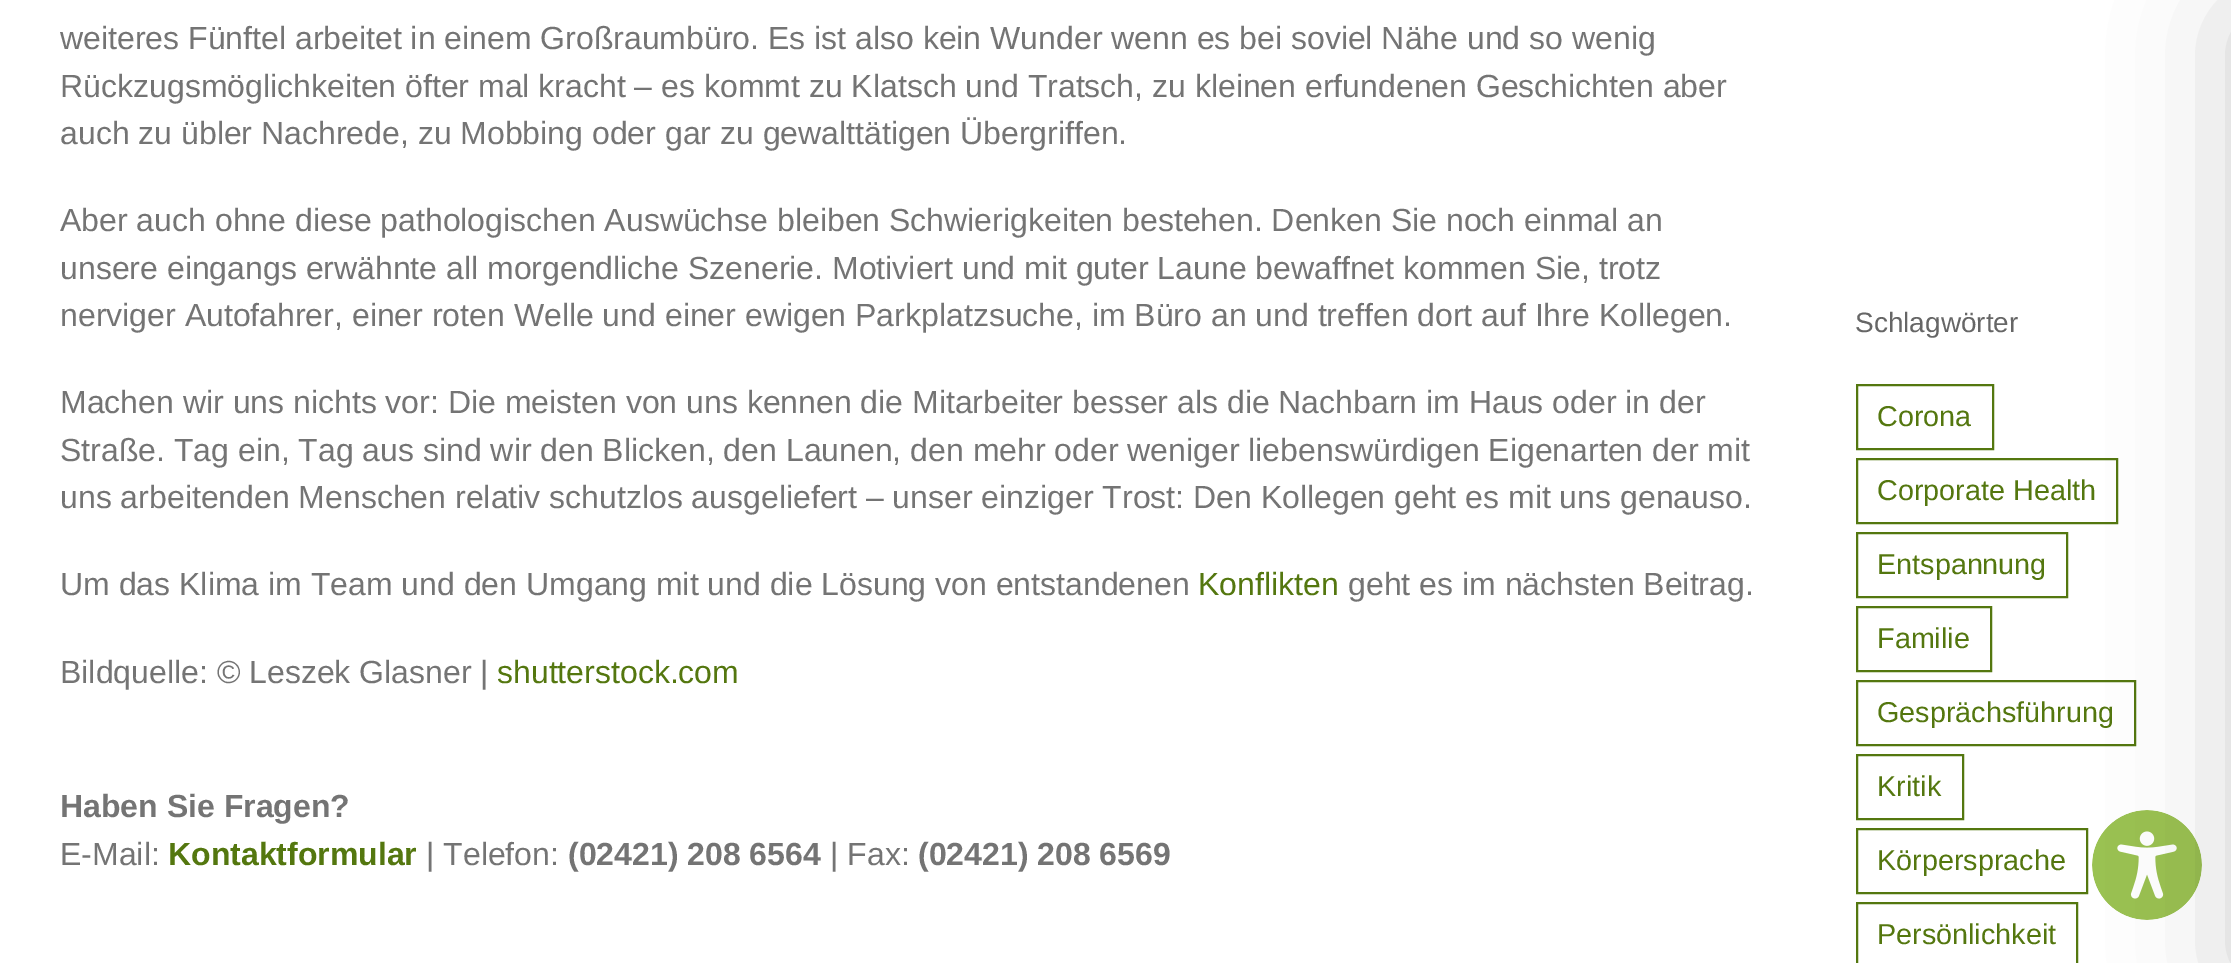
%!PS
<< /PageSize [2231 963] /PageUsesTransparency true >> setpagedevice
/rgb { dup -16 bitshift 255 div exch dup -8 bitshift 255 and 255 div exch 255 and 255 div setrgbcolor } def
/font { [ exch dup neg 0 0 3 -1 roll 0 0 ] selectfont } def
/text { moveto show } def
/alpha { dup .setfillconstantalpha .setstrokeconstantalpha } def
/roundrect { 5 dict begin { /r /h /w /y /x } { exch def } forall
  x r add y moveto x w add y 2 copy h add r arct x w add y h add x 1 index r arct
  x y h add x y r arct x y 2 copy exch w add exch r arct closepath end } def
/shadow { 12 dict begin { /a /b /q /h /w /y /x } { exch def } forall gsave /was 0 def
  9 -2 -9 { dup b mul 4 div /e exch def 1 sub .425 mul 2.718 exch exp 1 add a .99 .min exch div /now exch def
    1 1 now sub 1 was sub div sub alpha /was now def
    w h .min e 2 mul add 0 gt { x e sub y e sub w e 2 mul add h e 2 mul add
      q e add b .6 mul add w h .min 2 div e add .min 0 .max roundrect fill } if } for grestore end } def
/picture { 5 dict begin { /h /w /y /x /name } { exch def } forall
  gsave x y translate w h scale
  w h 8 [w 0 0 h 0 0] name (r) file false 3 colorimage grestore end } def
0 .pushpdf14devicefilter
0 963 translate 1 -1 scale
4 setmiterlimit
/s1 { /LiberationSans-Regular 32 font 16#747474 rgb } def
/s2 { /LiberationSans-Regular 32 font 16#54770F rgb } def
/s3 { /LiberationSans-Bold 32 font 16#747474 rgb } def
/s4 { /LiberationSans-Bold 32 font 16#54770F rgb } def
/s5 { /LiberationSans-Regular 28 font 16#666666 rgb } def
/s6 { /LiberationSans-Regular 28.75 font 16#54770F rgb } def
16#FFFFFF rgb
0 0 2231 963 rectfill
s1
(weiteres Fünftel arbeitet in einem Großraumbüro. Es ist also kein Wunder wenn es bei soviel Nähe und so wenig) 60 49 text
(Rückzugsmöglichkeiten öfter mal kracht – es kommt zu Klatsch und Tratsch, zu kleinen erfundenen Geschichten aber) 60 97 text
(auch zu übler Nachrede, zu Mobbing oder gar zu gewalttätigen Übergriffen.) 60 144 text
(Aber auch ohne diese pathologischen Auswüchse bleiben Schwierigkeiten bestehen. Denken Sie noch einmal an) 60 231 text
(unsere eingangs erwähnte all morgendliche Szenerie. Motiviert und mit guter Laune bewaffnet kommen Sie, trotz) 60 279 text
(nerviger Autofahrer, einer roten Welle und einer ewigen Parkplatzsuche, im Büro an und treffen dort auf Ihre Kollegen.) 60 326 text
(Machen wir uns nichts vor: Die meisten von uns kennen die Mitarbeiter besser als die Nachbarn im Haus oder in der) 60 413 text
(Straße. Tag ein, Tag aus sind wir den Blicken, den Launen, den mehr oder weniger liebenswürdigen Eigenarten der mit) 60 461 text
(uns arbeitenden Menschen relativ schutzlos ausgeliefert – unser einziger Trost: Den Kollegen geht es mit uns genauso.) 60 508 text
(Um das Klima im Team und den Umgang mit und die Lösung von entstandenen) 60 595 text
s2
(Konflikten) 1198 595 text
s1
(geht es im nächsten Beitrag.) 1348 595 text
(Bildquelle: © Leszek Glasner |) 60 683 text
s2
(shutterstock.com) 497 683 text
s3
(Haben Sie Fragen?) 60 817 text
s1
(E-Mail:) 60 865 text
s4
(Kontaktformular) 168 865 text
s1
(| Telefon:) 426 865 text
s3
(\(02421\) 208 6564) 568 865 text
s1
(| Fax:) 830 865 text
s3
(\(02421\) 208 6569) 918 865 text
s5
(Schlagwörter) 1855 332 text
16#54770F rgb
2 setlinewidth
1857 385 136 64 rectstroke
s6
(Corona) 1877 426 text
1857 459 260 64 rectstroke
(Corporate Health) 1877 500 text
1857 533 210 64 rectstroke
(Entspannung) 1877 574 text
1857 607 134 64 rectstroke
(Familie) 1877 648 text
1857 681 278 64 rectstroke
(Gesprächsführung) 1877 722 text
1857 755 106 64 rectstroke
(Kritik) 1877 796 text
1857 829 230 64 rectstroke
(Körpersprache) 1877 870 text
1857 903 220 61 rectstroke
(Persönlichkeit) 1877 944 text
(pic1.raw) 2092 810 110 110 picture
16#000000 rgb
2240 20 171 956 0 60 0.2 shadow
.poppdf14devicefilter showpage
